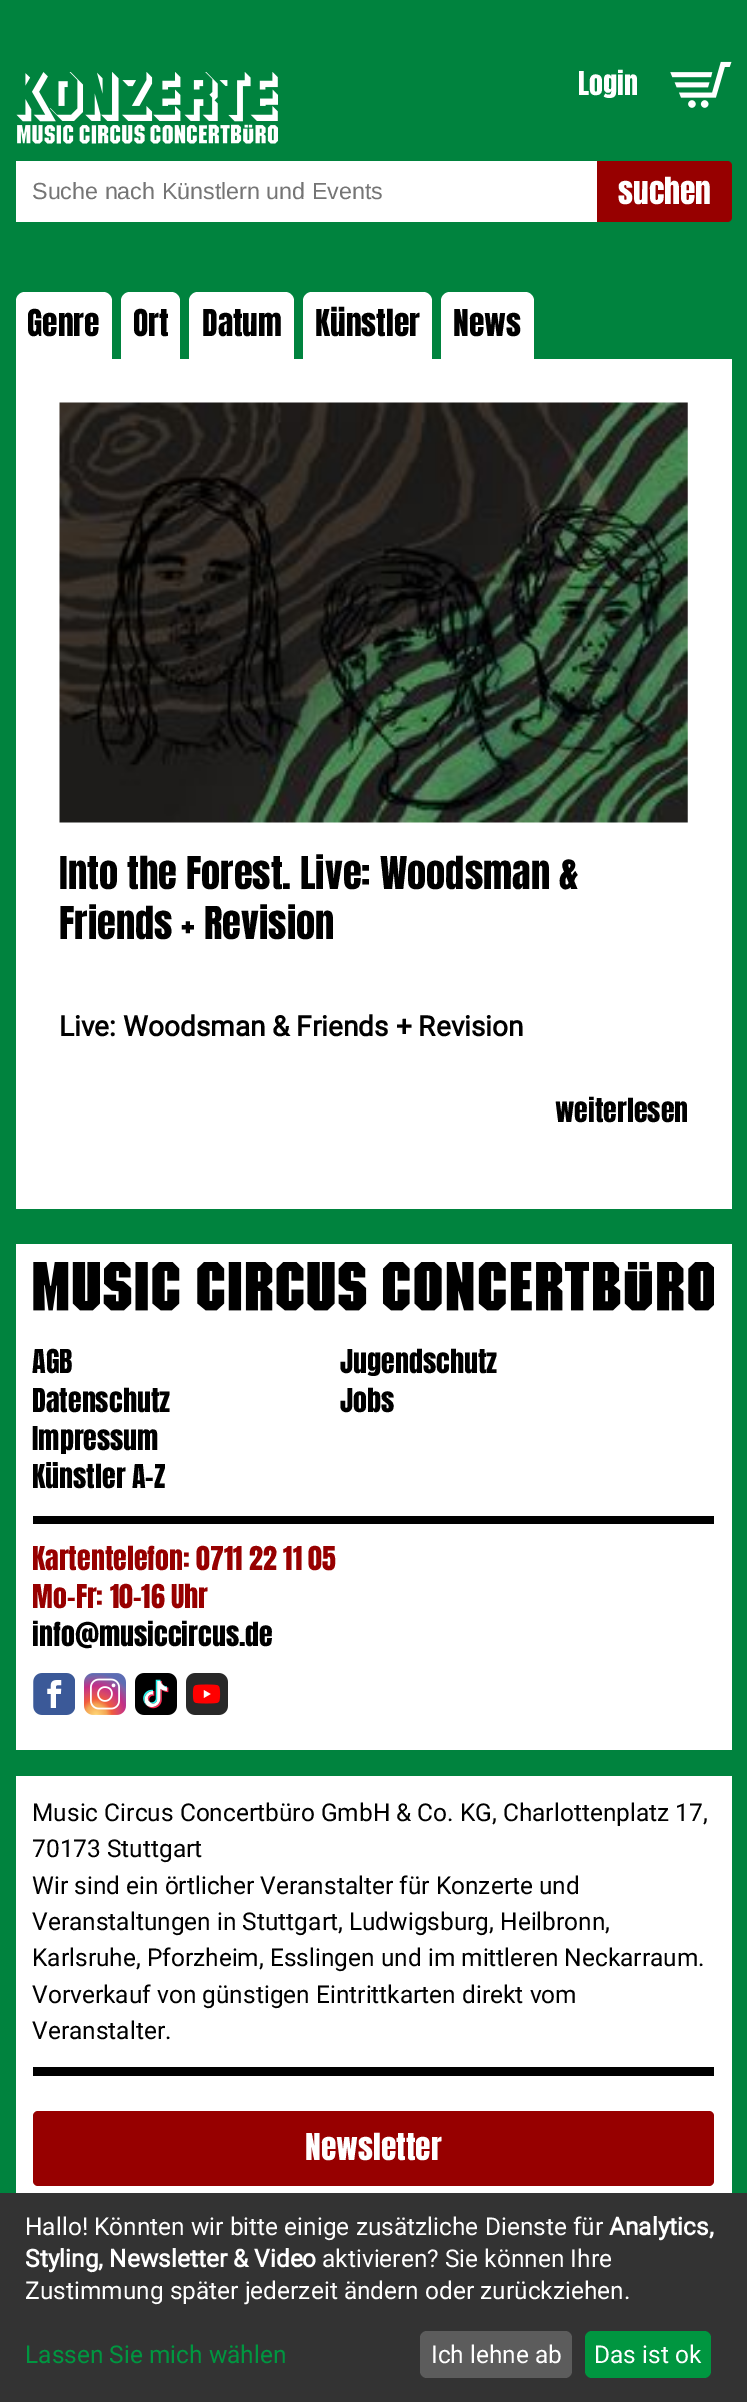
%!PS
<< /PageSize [747 2402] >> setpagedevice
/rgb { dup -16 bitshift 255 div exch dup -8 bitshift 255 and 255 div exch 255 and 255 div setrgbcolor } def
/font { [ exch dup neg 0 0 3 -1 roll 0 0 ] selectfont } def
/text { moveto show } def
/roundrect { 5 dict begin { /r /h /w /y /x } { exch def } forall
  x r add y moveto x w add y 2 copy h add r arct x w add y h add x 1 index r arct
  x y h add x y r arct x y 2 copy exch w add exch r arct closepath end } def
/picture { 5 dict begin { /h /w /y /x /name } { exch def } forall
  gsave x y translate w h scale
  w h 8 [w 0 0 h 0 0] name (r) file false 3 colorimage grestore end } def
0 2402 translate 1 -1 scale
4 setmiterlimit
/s1 { /Anton-Regular 28 font 16#FFFFFF rgb } def
/s2 { /LiberationSans-Regular 23.3 font 16#757575 rgb } def
/s3 { /Anton-Regular 31.5 font 16#FFFFFF rgb } def
/s4 { /Anton-Regular 31.5 font 16#000000 rgb } def
/s5 { /Anton-Regular 38.5 font 16#000000 rgb } def
/s6 { /Roboto-Bold 28 font 16#000000 rgb } def
/s7 { /Anton-Regular 28 font 16#000000 rgb } def
/s8 { /Anton-Regular 28 font 16#970000 rgb } def
/s9 { /Roboto-Regular 24.5 font 16#000000 rgb } def
/s10 { /Roboto-Regular 24.5 font 16#FFFFFF rgb } def
/s11 { /Roboto-Bold 24.5 font 16#FFFFFF rgb } def
/s12 { /Roboto-Regular 24.5 font 16#009640 rgb } def
16#00833E rgb
0 0 747 2402 rectfill
(pic1.raw) 16 72 262 72 picture
s1
(Login) 578 95 text
(pic2.raw) 670 61 62 47 picture
16 161 581 61 rectfill
s2
(Suche nach Künstlern und Events) 32 199 text
16#970000 rgb
597 161 moveto 727 161 lineto 730 161 732 163 732 166 curveto 732 217 lineto 732 220 730 222 727 222 curveto 597 222 lineto closepath fill
s3
(suchen) 618 204 text
25 292 moveto 103 292 lineto 108 292 112 296 112 301 curveto 112 359 lineto 16 359 lineto 16 301 lineto 16 296 20 292 25 292 curveto closepath fill
s4
(Genre) 27 336 text
16#FFFFFF rgb
130 292 moveto 171 292 lineto 176 292 180 296 180 301 curveto 180 359 lineto 121 359 lineto 121 301 lineto 121 296 125 292 130 292 curveto closepath fill
s4
(Ort) 133 336 text
16#FFFFFF rgb
198 292 moveto 285 292 lineto 290 292 294 296 294 301 curveto 294 359 lineto 189 359 lineto 189 301 lineto 189 296 193 292 198 292 curveto closepath fill
s4
(Datum) 202 336 text
16#FFFFFF rgb
312 292 moveto 423 292 lineto 428 292 432 296 432 301 curveto 432 359 lineto 303 359 lineto 303 301 lineto 303 296 307 292 312 292 curveto closepath fill
s4
(Künstler) 315 336 text
16#FFFFFF rgb
450 292 moveto 525 292 lineto 530 292 534 296 534 301 curveto 534 359 lineto 441 359 lineto 441 301 lineto 441 296 445 292 450 292 curveto closepath fill
s4
(News) 453 336 text
16#FFFFFF rgb
16 359 716 850 rectfill
(pic3.raw) 59 402 629 421 picture
s5
(Into the Forest. Live: Woodsman &) 59 889 text
(Friends + Revision) 59 939 text
s6
(Live: Woodsman & Friends + Revision) 59 1036 text
s7
(weiterlesen) 555 1122 text
16#FFFFFF rgb
16 1244 716 506 rectfill
16#000000 rgb
33 1516 681 8 rectfill
(pic4.raw) 33 1262 681 49 picture
(AGB) 32 1373 text
(Datenschutz) 32 1412 text
(Impressum) 32 1450 text
(Jugendschutz) 340 1373 text
(Jobs) 340 1412 text
(Künstler A-Z) 32 1488 text
s8
(Kartentelefon: 0711 22 11 05) 32 1570 text
(Mo-Fr: 10-16 Uhr) 32 1608 text
s7
(info@musiccircus.de) 32 1646 text
(pic5.raw) 33 1673 42 42 picture
(pic6.raw) 84 1673 42 42 picture
(pic7.raw) 135 1673 42 42 picture
(pic8.raw) 186 1673 42 42 picture
16#FFFFFF rgb
16 1776 716 417 rectfill
16#000000 rgb
33 2067 681 9 rectfill
s9
(Music Circus Concertbüro GmbH & Co. KG, Charlottenplatz 17,) 32 1821 text
(70173 Stuttgart) 32 1857 text
(Wir sind ein örtlicher Veranstalter für Konzerte und) 32 1894 text
(Veranstaltungen in Stuttgart, Ludwigsburg, Heilbronn,) 32 1930 text
(Karlsruhe, Pforzheim, Esslingen und im mittleren Neckarraum.) 32 1966 text
(Vorverkauf von günstigen Eintrittkarten direkt vom) 32 2003 text
(Veranstalter.) 32 2039 text
16#970000 rgb
33 2111 681 75 5 roundrect fill
s3
(Newsletter) 305 2160 text
16#333333 rgb
0 2193 747 209 rectfill
s10
(Hallo! Könnten wir bitte einige zusätzliche Dienste für) 25 2235 text
s11
(Analytics,) 609 2235 text
(Styling, Newsletter & Video) 25 2267 text
s10
(aktivieren? Sie können Ihre) 322 2267 text
(Zustimmung später jederzeit ändern oder zurückziehen.) 25 2299 text
s12
(Lassen Sie mich wählen) 25 2363 text
16#5C5C5C rgb
420 2331 152 47 7 roundrect fill
s10
(Ich lehne ab) 431 2363 text
16#009640 rgb
585 2331 126 47 7 roundrect fill
s10
(Das ist ok) 594 2363 text
showpage
